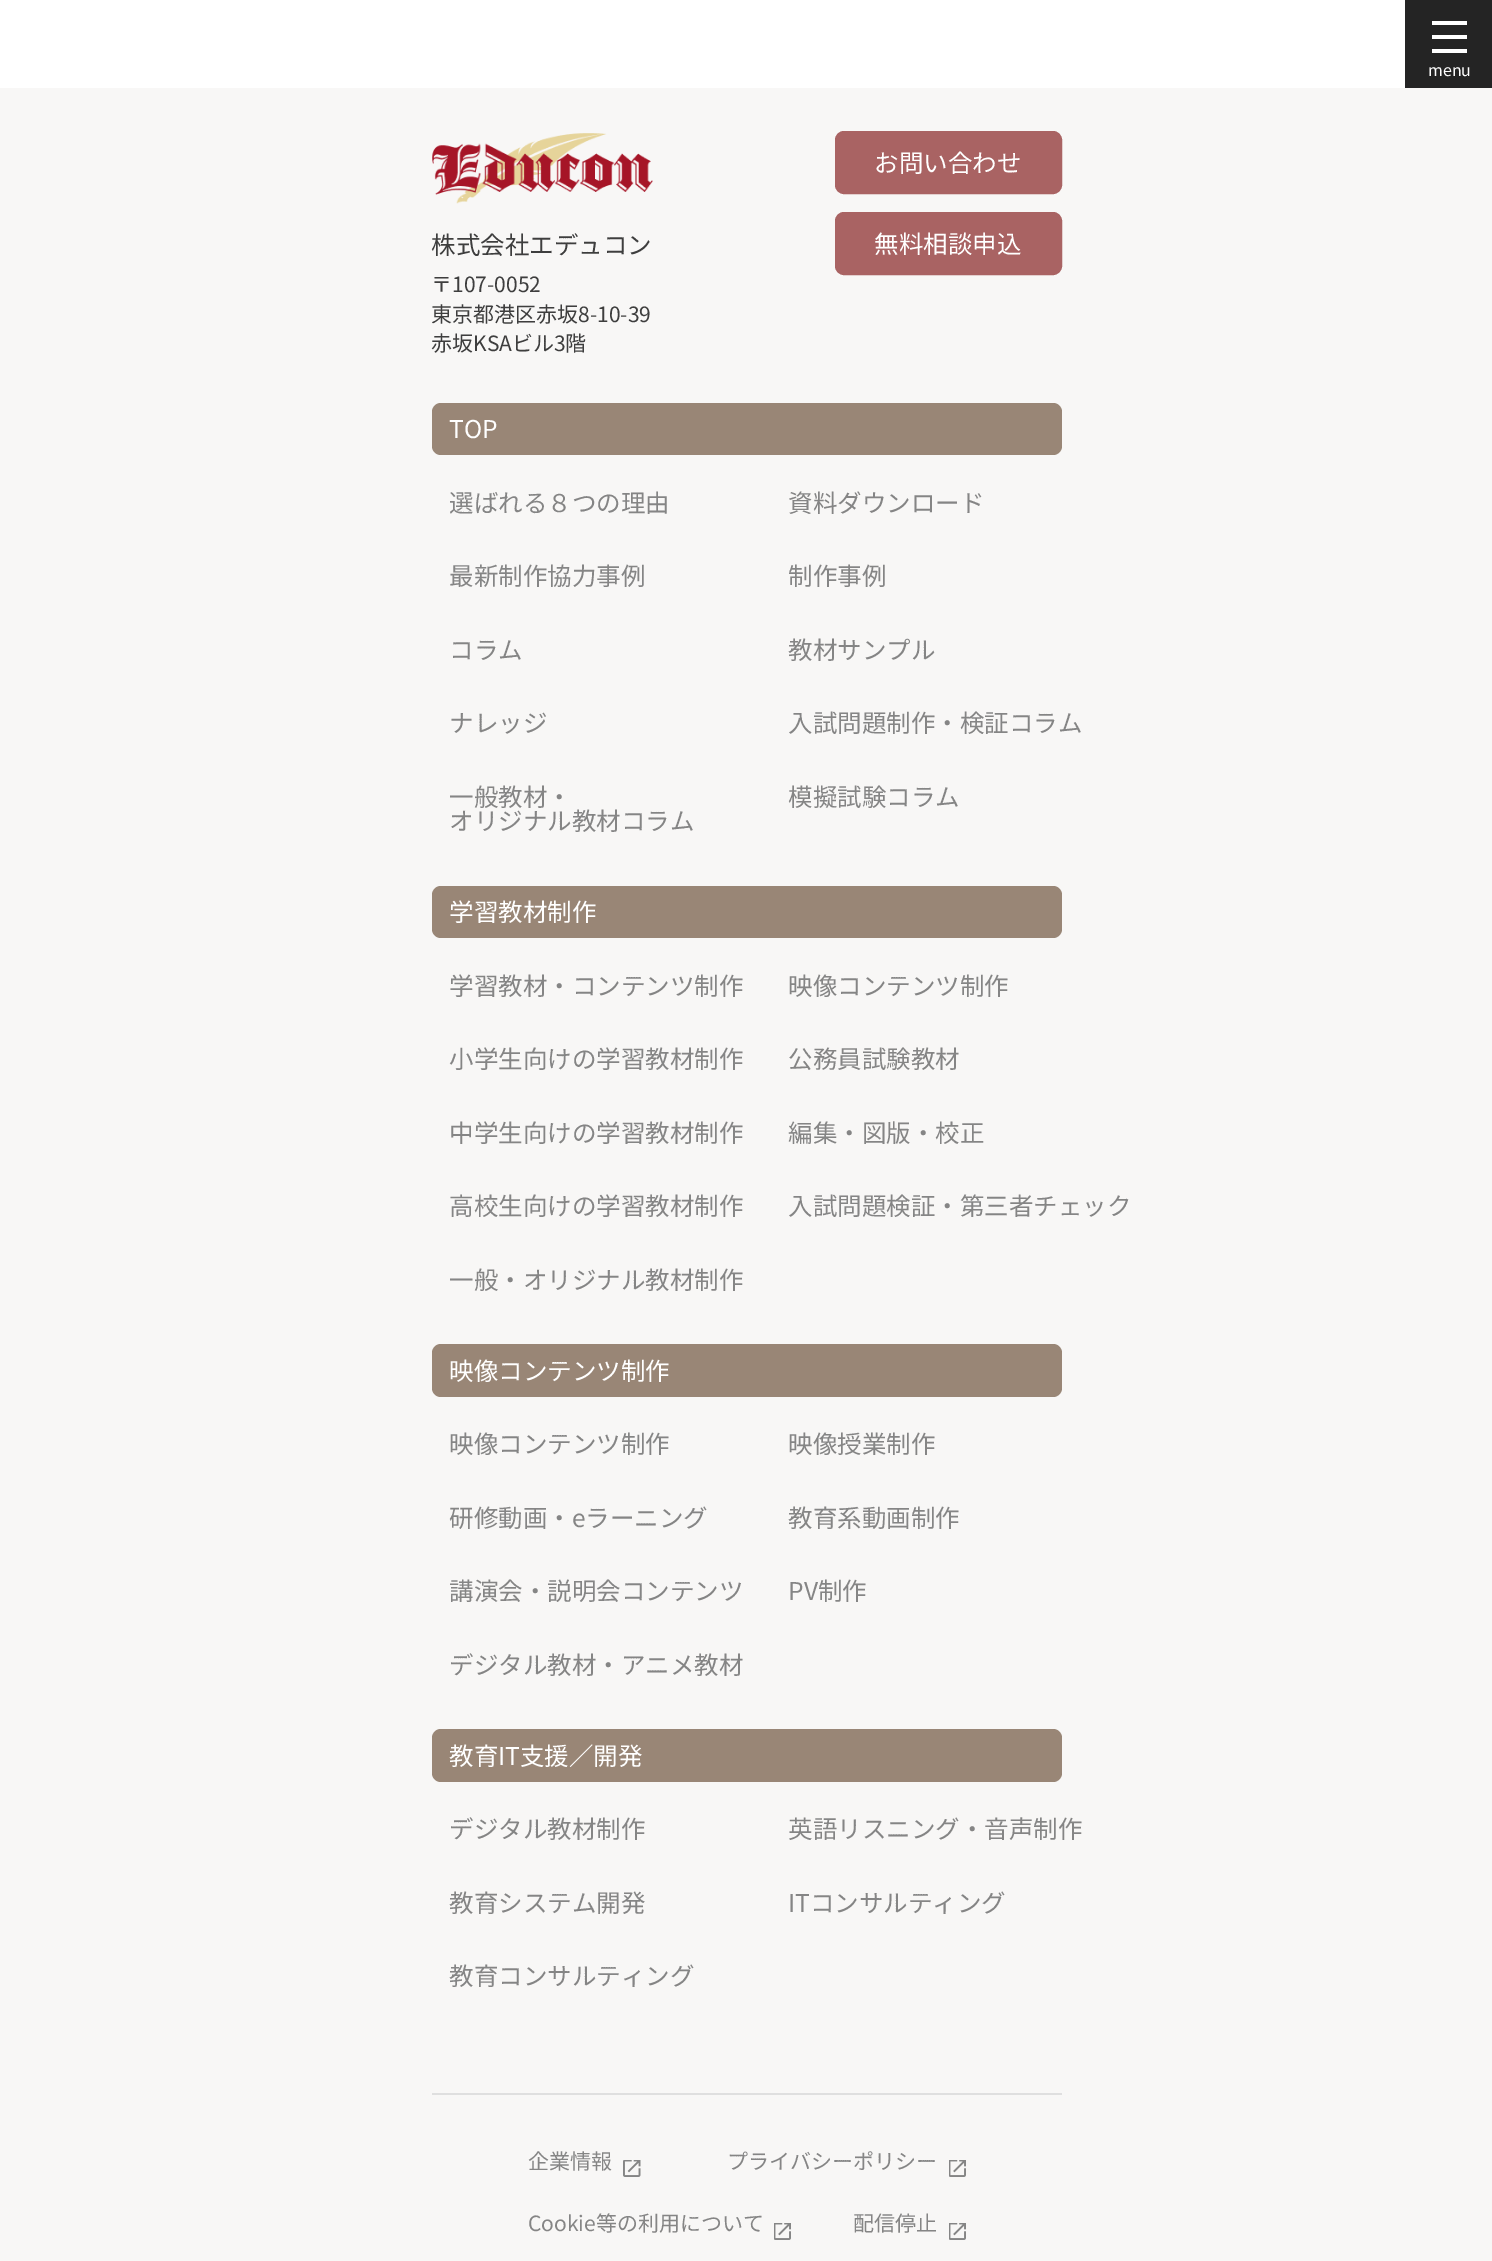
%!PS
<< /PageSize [1492 2261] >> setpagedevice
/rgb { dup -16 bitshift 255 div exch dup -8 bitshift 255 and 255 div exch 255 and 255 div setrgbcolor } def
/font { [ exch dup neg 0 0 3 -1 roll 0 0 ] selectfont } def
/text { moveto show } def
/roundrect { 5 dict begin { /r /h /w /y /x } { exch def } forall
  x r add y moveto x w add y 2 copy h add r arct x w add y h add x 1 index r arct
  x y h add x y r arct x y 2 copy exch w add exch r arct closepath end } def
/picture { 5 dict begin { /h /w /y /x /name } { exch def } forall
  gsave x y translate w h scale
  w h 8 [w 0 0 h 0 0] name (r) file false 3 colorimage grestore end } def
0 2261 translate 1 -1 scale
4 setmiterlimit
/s1 { /NotoSansJP-Regular 16 font 16#FFFFFF rgb } def
/s2 { /NotoSansJP-Regular 24.5 font 16#FFFFFF rgb } def
/s3 { /NotoSansJP-Regular 24.5 font 16#3E3E3E rgb } def
/s4 { /NotoSansJP-Regular 21 font 16#3E3E3E rgb } def
/s5 { /NotoSansJP-Regular 24.5 font 16#858585 rgb } def
/s6 { /NotoSansJP-Regular 21 font 16#858585 rgb } def
16#F8F7F6 rgb
0 0 1492 2261 rectfill
16#FFFFFF rgb
0 0 1405 88 rectfill
16#242424 rgb
1405 0 87 88 rectfill
16#FFFFFF rgb
1432 21 35 4 rectfill
1432 35 35 4 rectfill
1432 49 35 4 rectfill
s1
(menu) 1428 76 text
16#A96363 rgb
836 132 225 61 8 roundrect gsave fill grestore
2 setlinewidth
stroke
s2
(お問い合わせ) 874 172 text
16#A96363 rgb
836 213 225 61 8 roundrect gsave fill grestore
stroke
s2
(無料相談申込) 874 253 text
(pic1.raw) 432 133 221 71 picture
s3
(株式会社エデュコン) 431 254 text
s4
(〒107-0052) 431 292 text
(東京都港区赤坂8-10-39) 431 322 text
(赤坂KSAビル3階) 431 351 text
16#DFDFDF rgb
432 2093 630 2 rectfill
16#998676 rgb
432 403 630 52 9 roundrect fill
s2
(TOP) 449 438 text
s5
(選ばれる８つの理由) 449 512 text
(資料ダウンロード) 788 512 text
(最新制作協力事例) 449 585 text
(制作事例) 788 585 text
(コラム) 449 659 text
(教材サンプル) 788 659 text
(ナレッジ) 449 732 text
(入試問題制作・検証コラム) 788 732 text
(一般教材・) 449 806 text
(オリジナル教材コラム) 449 830 text
(模擬試験コラム) 788 806 text
16#998676 rgb
432 886 630 52 9 roundrect fill
s2
(学習教材制作) 449 921 text
s5
(学習教材・コンテンツ制作) 449 995 text
(映像コンテンツ制作) 788 995 text
(小学生向けの学習教材制作) 449 1068 text
(公務員試験教材) 788 1068 text
(中学生向けの学習教材制作) 449 1142 text
(編集・図版・校正) 788 1142 text
(高校生向けの学習教材制作) 449 1215 text
(入試問題検証・第三者チェック) 788 1215 text
(一般・オリジナル教材制作) 449 1289 text
16#998676 rgb
432 1344 630 53 9 roundrect fill
s2
(映像コンテンツ制作) 449 1380 text
s5
(映像コンテンツ制作) 449 1453 text
(映像授業制作) 788 1453 text
(研修動画・eラーニング) 449 1527 text
(教育系動画制作) 788 1527 text
(講演会・説明会コンテンツ) 449 1600 text
(PV制作) 788 1600 text
(デジタル教材・アニメ教材) 449 1674 text
16#998676 rgb
432 1729 630 53 9 roundrect fill
s2
(教育IT支援／開発) 449 1765 text
s5
(デジタル教材制作) 449 1838 text
(英語リスニング・音声制作) 788 1838 text
(教育システム開発) 449 1912 text
(ITコンサルティング) 788 1912 text
(教育コンサルティング) 449 1985 text
s6
(企業情報) 528 2169 text
(pic2.raw) 623 2160 18 17 picture
(プライバシーポリシー) 727 2169 text
(pic3.raw) 949 2160 17 17 picture
(Cookie等の利用について) 528 2231 text
(pic3.raw) 774 2223 17 17 picture
(配信停止) 853 2231 text
(pic3.raw) 949 2223 17 17 picture
showpage
